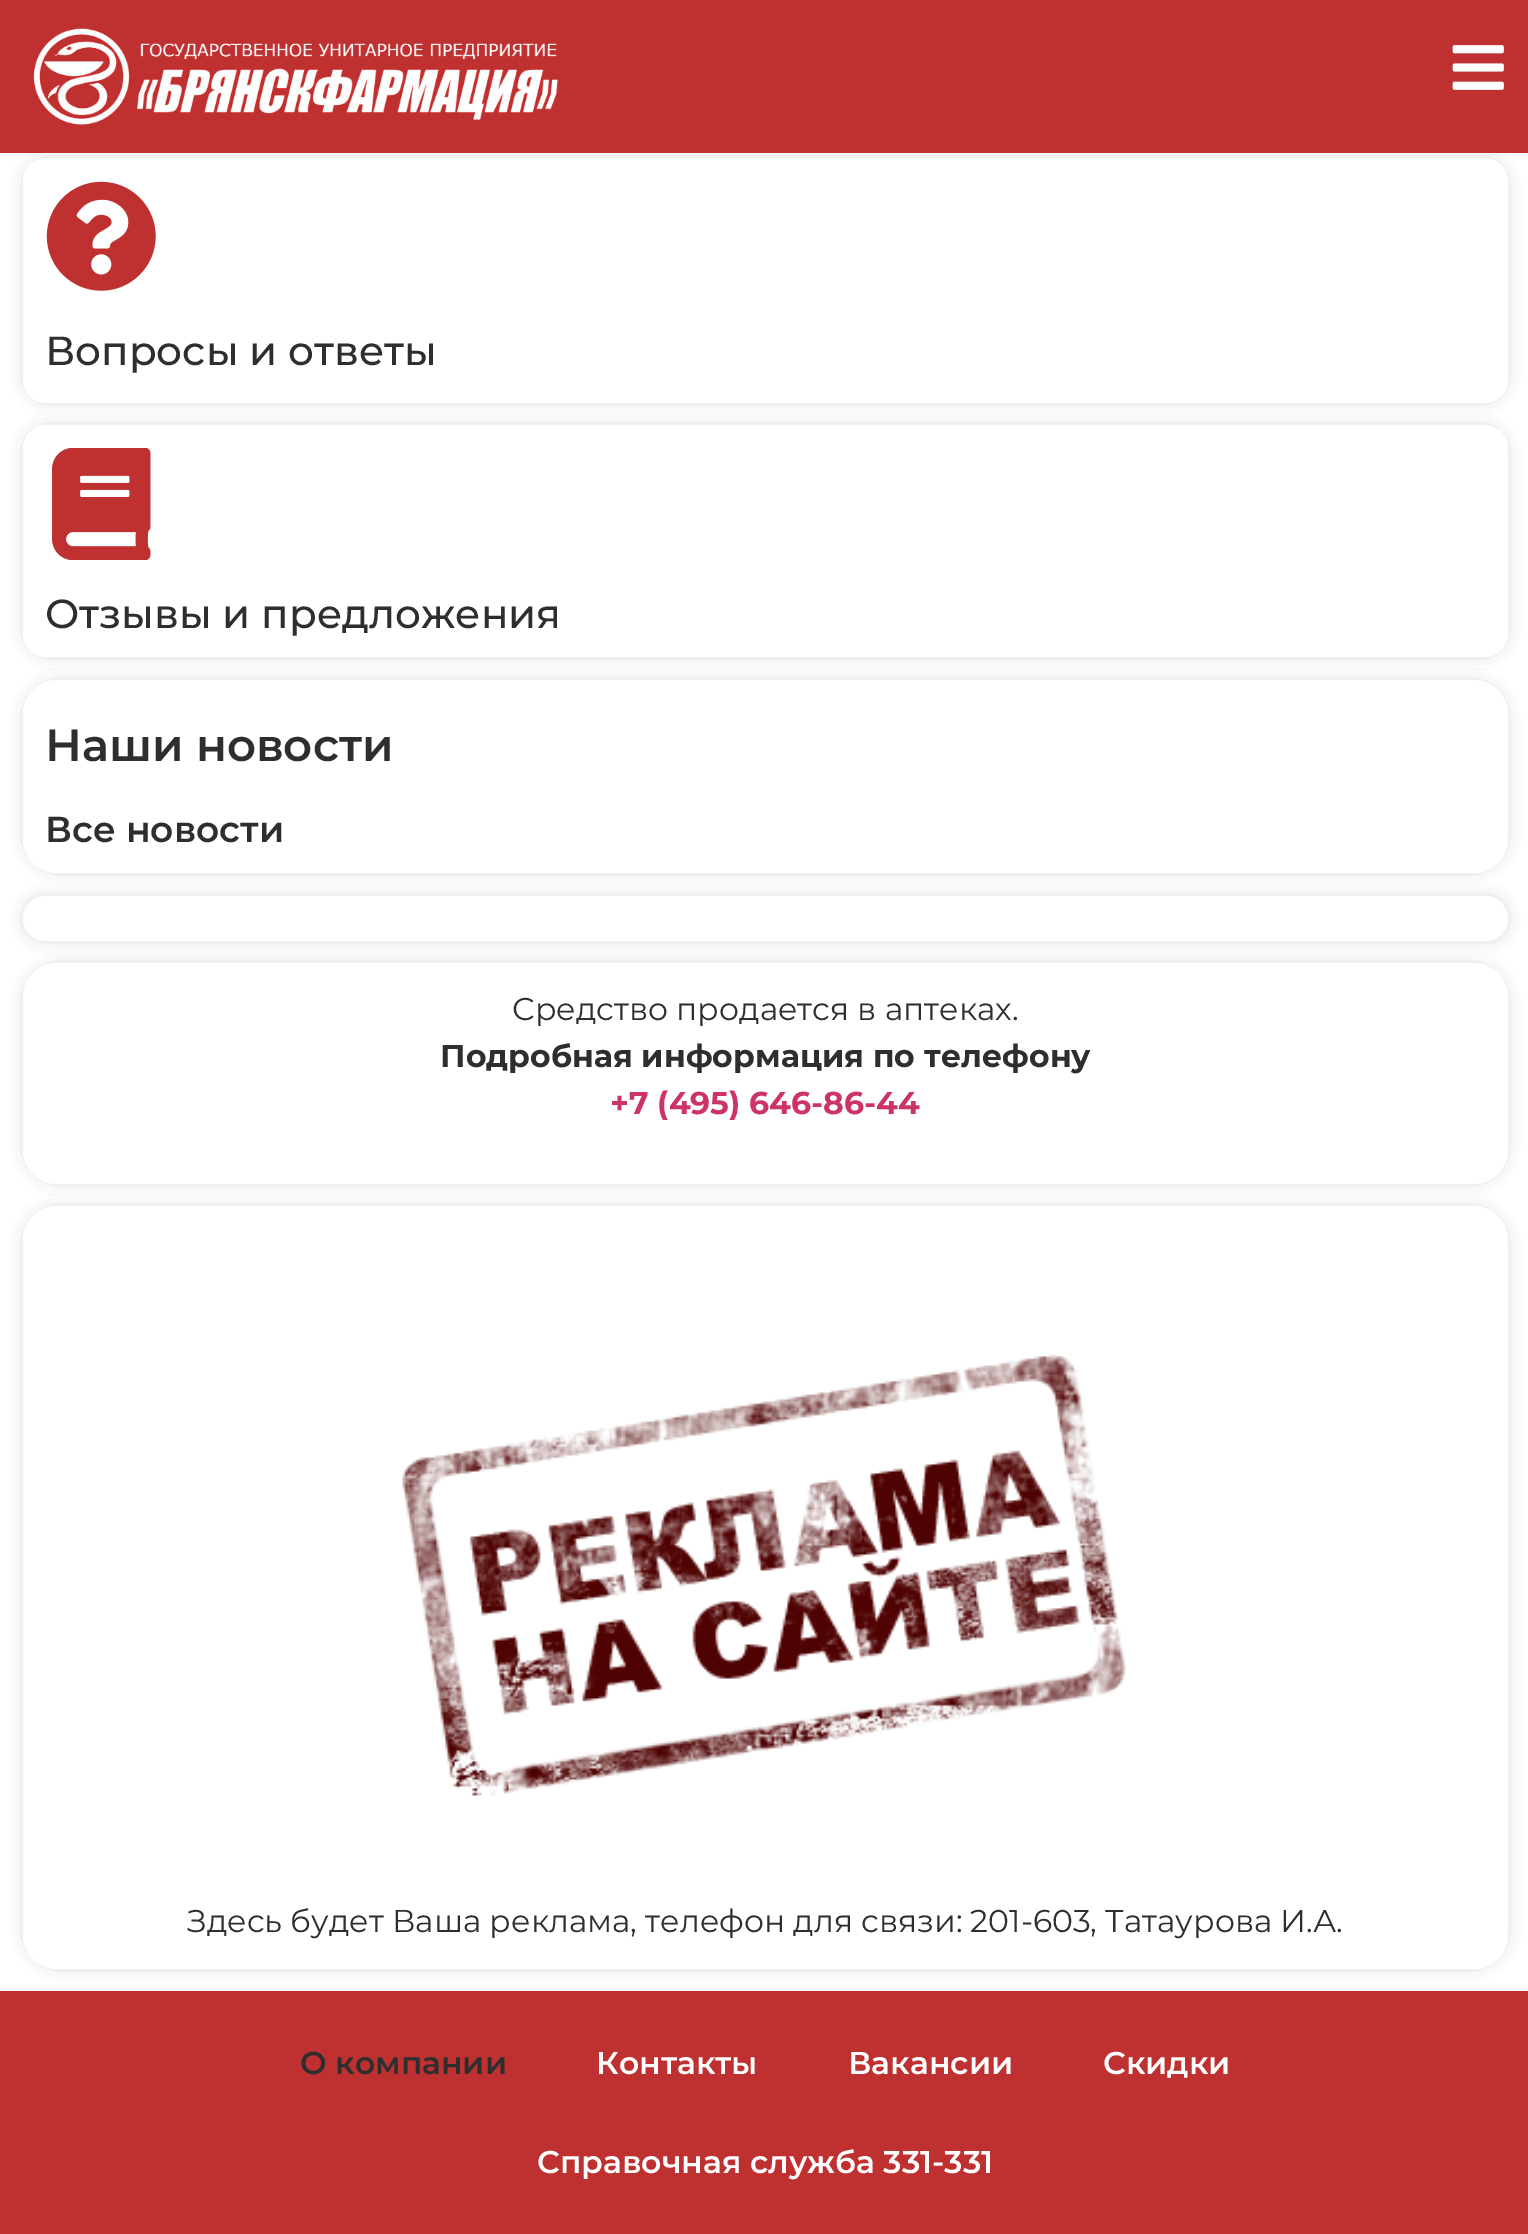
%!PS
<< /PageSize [1528 2234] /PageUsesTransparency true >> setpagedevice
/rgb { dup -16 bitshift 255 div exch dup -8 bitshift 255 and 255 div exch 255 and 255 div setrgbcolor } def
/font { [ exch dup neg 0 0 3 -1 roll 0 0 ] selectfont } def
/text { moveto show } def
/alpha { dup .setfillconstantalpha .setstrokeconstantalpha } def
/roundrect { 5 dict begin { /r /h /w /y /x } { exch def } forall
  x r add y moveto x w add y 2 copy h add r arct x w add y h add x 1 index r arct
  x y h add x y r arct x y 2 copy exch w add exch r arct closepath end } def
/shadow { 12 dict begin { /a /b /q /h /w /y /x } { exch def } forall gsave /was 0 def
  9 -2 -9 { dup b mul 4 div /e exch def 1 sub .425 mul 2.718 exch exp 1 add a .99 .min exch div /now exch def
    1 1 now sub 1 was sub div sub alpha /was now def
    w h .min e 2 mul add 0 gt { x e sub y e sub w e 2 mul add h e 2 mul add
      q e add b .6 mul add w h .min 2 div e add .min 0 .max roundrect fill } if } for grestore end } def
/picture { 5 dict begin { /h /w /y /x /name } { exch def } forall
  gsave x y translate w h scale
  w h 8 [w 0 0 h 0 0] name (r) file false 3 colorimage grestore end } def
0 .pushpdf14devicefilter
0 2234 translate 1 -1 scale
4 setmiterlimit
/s1 { /Montserrat-Medium 40.5 font 16#2E2E2E rgb } def
/s2 { /Montserrat-SemiBold 45 font 16#2E2E2E rgb } def
/s3 { /Montserrat-SemiBold 36 font 16#2E2E2E rgb } def
/s4 { /Montserrat-Regular 31.5 font 16#2E2E2E rgb } def
/s5 { /Montserrat-Bold 31.5 font 16#2E2E2E rgb } def
/s6 { /Montserrat-Bold 31.5 font 16#CC3366 rgb } def
/s7 { /Montserrat-SemiBold 31.5 font 16#2E2E2E rgb } def
/s8 { /Montserrat-SemiBold 31.5 font 16#FFFFFF rgb } def
16#FFFFFF rgb
0 0 1528 2234 rectfill
16#000000 rgb
32 167 1467 227 14 10 0.36 shadow
16#BF3030 rgb
0 0 1528 153 rectfill
(pic1.raw) 33 28 525 97 picture
(pic2.raw) 1452 45 52 45 picture
16#FFFFFF rgb
23 158 1485 245 23 roundrect fill
(pic3.raw) 46 181 110 110 picture
s1
(Вопросы и ответы) 45 365 text
16#000000 rgb
32 434 1467 214 14 10 0.36 shadow
16#FFFFFF rgb
23 425 1485 232 23 roundrect fill
(pic4.raw) 52 448 99 112 picture
s1
(Отзывы и предложения) 45 628 text
16#000000 rgb
32 689 1467 175 25 10 0.36 shadow
16#FFFFFF rgb
23 680 1485 193 34 roundrect fill
s2
(Наши новости) 45 761 text
s3
(Все новости) 45 842 text
16#000000 rgb
32 905 1467 27 13.5 10 0.36 shadow
16#FFFFFF rgb
23 896 1485 45 22.5 roundrect fill
16#000000 rgb
32 972 1467 203 25 10 0.36 shadow
16#FFFFFF rgb
23 963 1485 221 34 roundrect fill
s4
(Средство продается в аптеках.) 512 1020 text
s5
(Подробная информация по телефону) 440 1067 text
s6
(+7 \(495\) 646-86-44) 610 1114 text
16#000000 rgb
32 1215 1467 745 25 10 0.36 shadow
16#FFFFFF rgb
23 1206 1485 763 34 roundrect fill
(pic5.raw) 402 1354 724 442 picture
s4
(Здесь будет Ваша реклама, телефон для связи: 201-603, Татаурова И.А.) 187 1932 text
16#BF3030 rgb
0 1991 1528 243 rectfill
s7
(О компании) 300 2074 text
s8
(Контакты) 596 2074 text
(Вакансии) 848 2074 text
(Скидки) 1103 2074 text
(Справочная служба 331-331) 537 2173 text
.poppdf14devicefilter showpage
